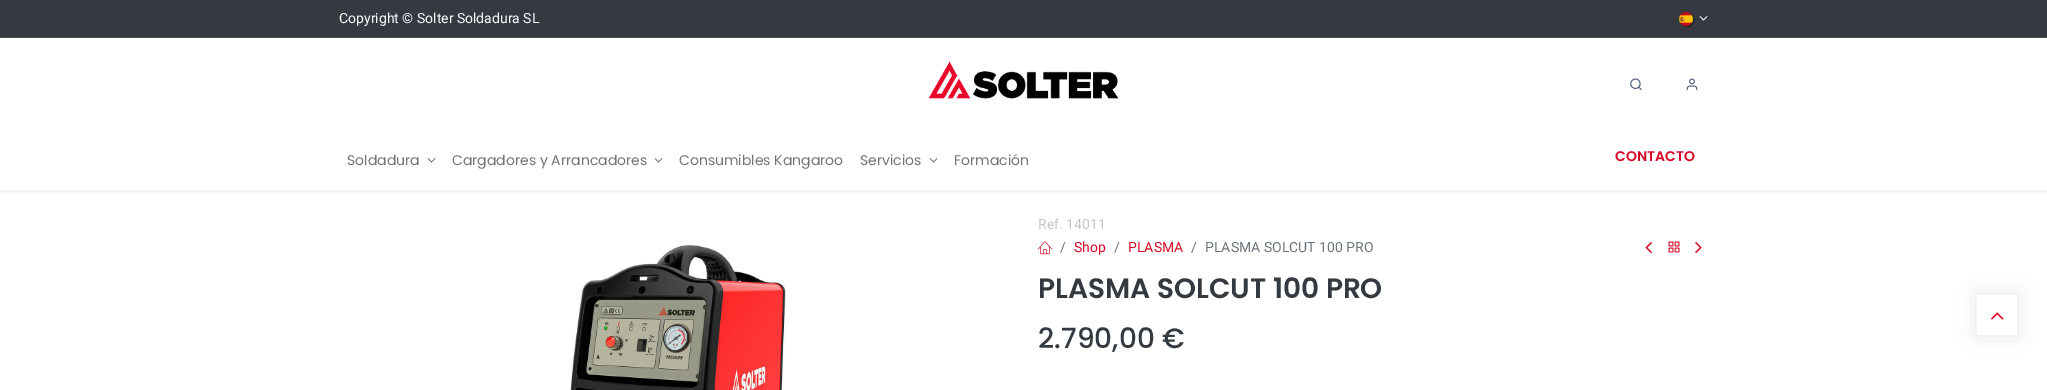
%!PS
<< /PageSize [2047 390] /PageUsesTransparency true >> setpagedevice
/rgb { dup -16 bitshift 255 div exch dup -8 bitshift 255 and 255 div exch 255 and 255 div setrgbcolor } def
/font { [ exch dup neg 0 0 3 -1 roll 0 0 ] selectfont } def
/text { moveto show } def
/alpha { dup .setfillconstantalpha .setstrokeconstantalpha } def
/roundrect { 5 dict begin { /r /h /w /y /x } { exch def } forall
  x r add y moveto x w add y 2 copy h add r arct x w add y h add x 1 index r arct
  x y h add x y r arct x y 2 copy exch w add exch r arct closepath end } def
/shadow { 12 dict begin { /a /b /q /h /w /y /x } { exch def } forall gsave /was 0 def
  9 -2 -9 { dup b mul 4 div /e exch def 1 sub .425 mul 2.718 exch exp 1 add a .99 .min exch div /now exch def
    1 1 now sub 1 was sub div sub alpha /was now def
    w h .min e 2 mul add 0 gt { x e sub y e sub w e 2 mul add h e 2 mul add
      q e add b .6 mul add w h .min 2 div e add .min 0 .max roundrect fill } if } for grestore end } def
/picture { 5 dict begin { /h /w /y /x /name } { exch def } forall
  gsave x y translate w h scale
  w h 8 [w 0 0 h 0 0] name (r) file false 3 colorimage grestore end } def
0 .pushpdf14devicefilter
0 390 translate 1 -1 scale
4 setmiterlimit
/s1 { /Roboto-Regular 14 font 16#F9FAFE rgb } def
/s2 { /Poppins-Regular 14 font 16#737373 rgb } def
/s3 { /Poppins-SemiBold 14 font 16#D60926 rgb } def
/s4 { /Roboto-Regular 14 font 16#C0C6CC rgb } def
/s5 { /Roboto-Regular 14 font 16#6C757D rgb } def
/s6 { /Roboto-Regular 14 font 16#D60926 rgb } def
/s7 { /Poppins-SemiBold 28 font 16#343A40 rgb } def
/s8 { /Poppins-Medium 28 font 16#343A40 rgb } def
16#FFFFFF rgb
0 0 2047 390 rectfill
16#343A40 rgb
0 0 2047 37 rectfill
16#4C5257 rgb
0 37 2047 1 rectfill
s1
(Copyright © Solter Soldadura SL) 339 23 text
16#000000 rgb
1680 13 14 14 7 0.5 0.43 shadow
(pic1.raw) 1679 12 14 14 picture
(pic2.raw) 1699 16 9 5 picture
(pic3.raw) 928 61 191 38 picture
(pic4.raw) 1630 78 12 13 picture
(pic5.raw) 1686 78 12 13 picture
gsave
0 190 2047 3 rectclip
0 134 2047 58 0 2 0.07 shadow
grestore
s2
(Soldadura) 347 165 text
(pic6.raw) 427 158 9 5 picture
(Cargadores y Arrancadores) 452 165 text
(pic6.raw) 654 158 9 5 picture
(Consumibles Kangaroo) 679 165 text
(Servicios) 860 165 text
(pic6.raw) 929 158 9 5 picture
(Formación) 954 165 text
s3
(CONTACTO) 1615 161 text
(pic7.raw) 570 245 216 145 picture
s4
(Ref. 14011) 1038 229 text
(pic8.raw) 1038 241 14 14 picture
s5
(/) 1060 252 text
s6
(Shop) 1074 252 text
s5
(/) 1114 252 text
s6
(PLASMA) 1128 252 text
s5
(/) 1191 252 text
(PLASMA SOLCUT 100 PRO) 1205 252 text
(pic9.raw) 1645 242 7 12 picture
(pic10.raw) 1668 241 12 12 picture
(pic11.raw) 1695 242 7 12 picture
s7
(PLASMA SOLCUT 100 PRO) 1038 298 text
s8
(2.790,00 €) 1038 348 text
gsave
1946 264 moveto 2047 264 lineto 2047 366 lineto 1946 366 lineto closepath 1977 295 moveto 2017 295 lineto 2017 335 lineto 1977 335 lineto closepath eoclip newpath
16#000000 rgb
1977 295 40 40 0 10 0.1 shadow
grestore
(pic12.raw) 1991 312 13 8 picture
.poppdf14devicefilter showpage
